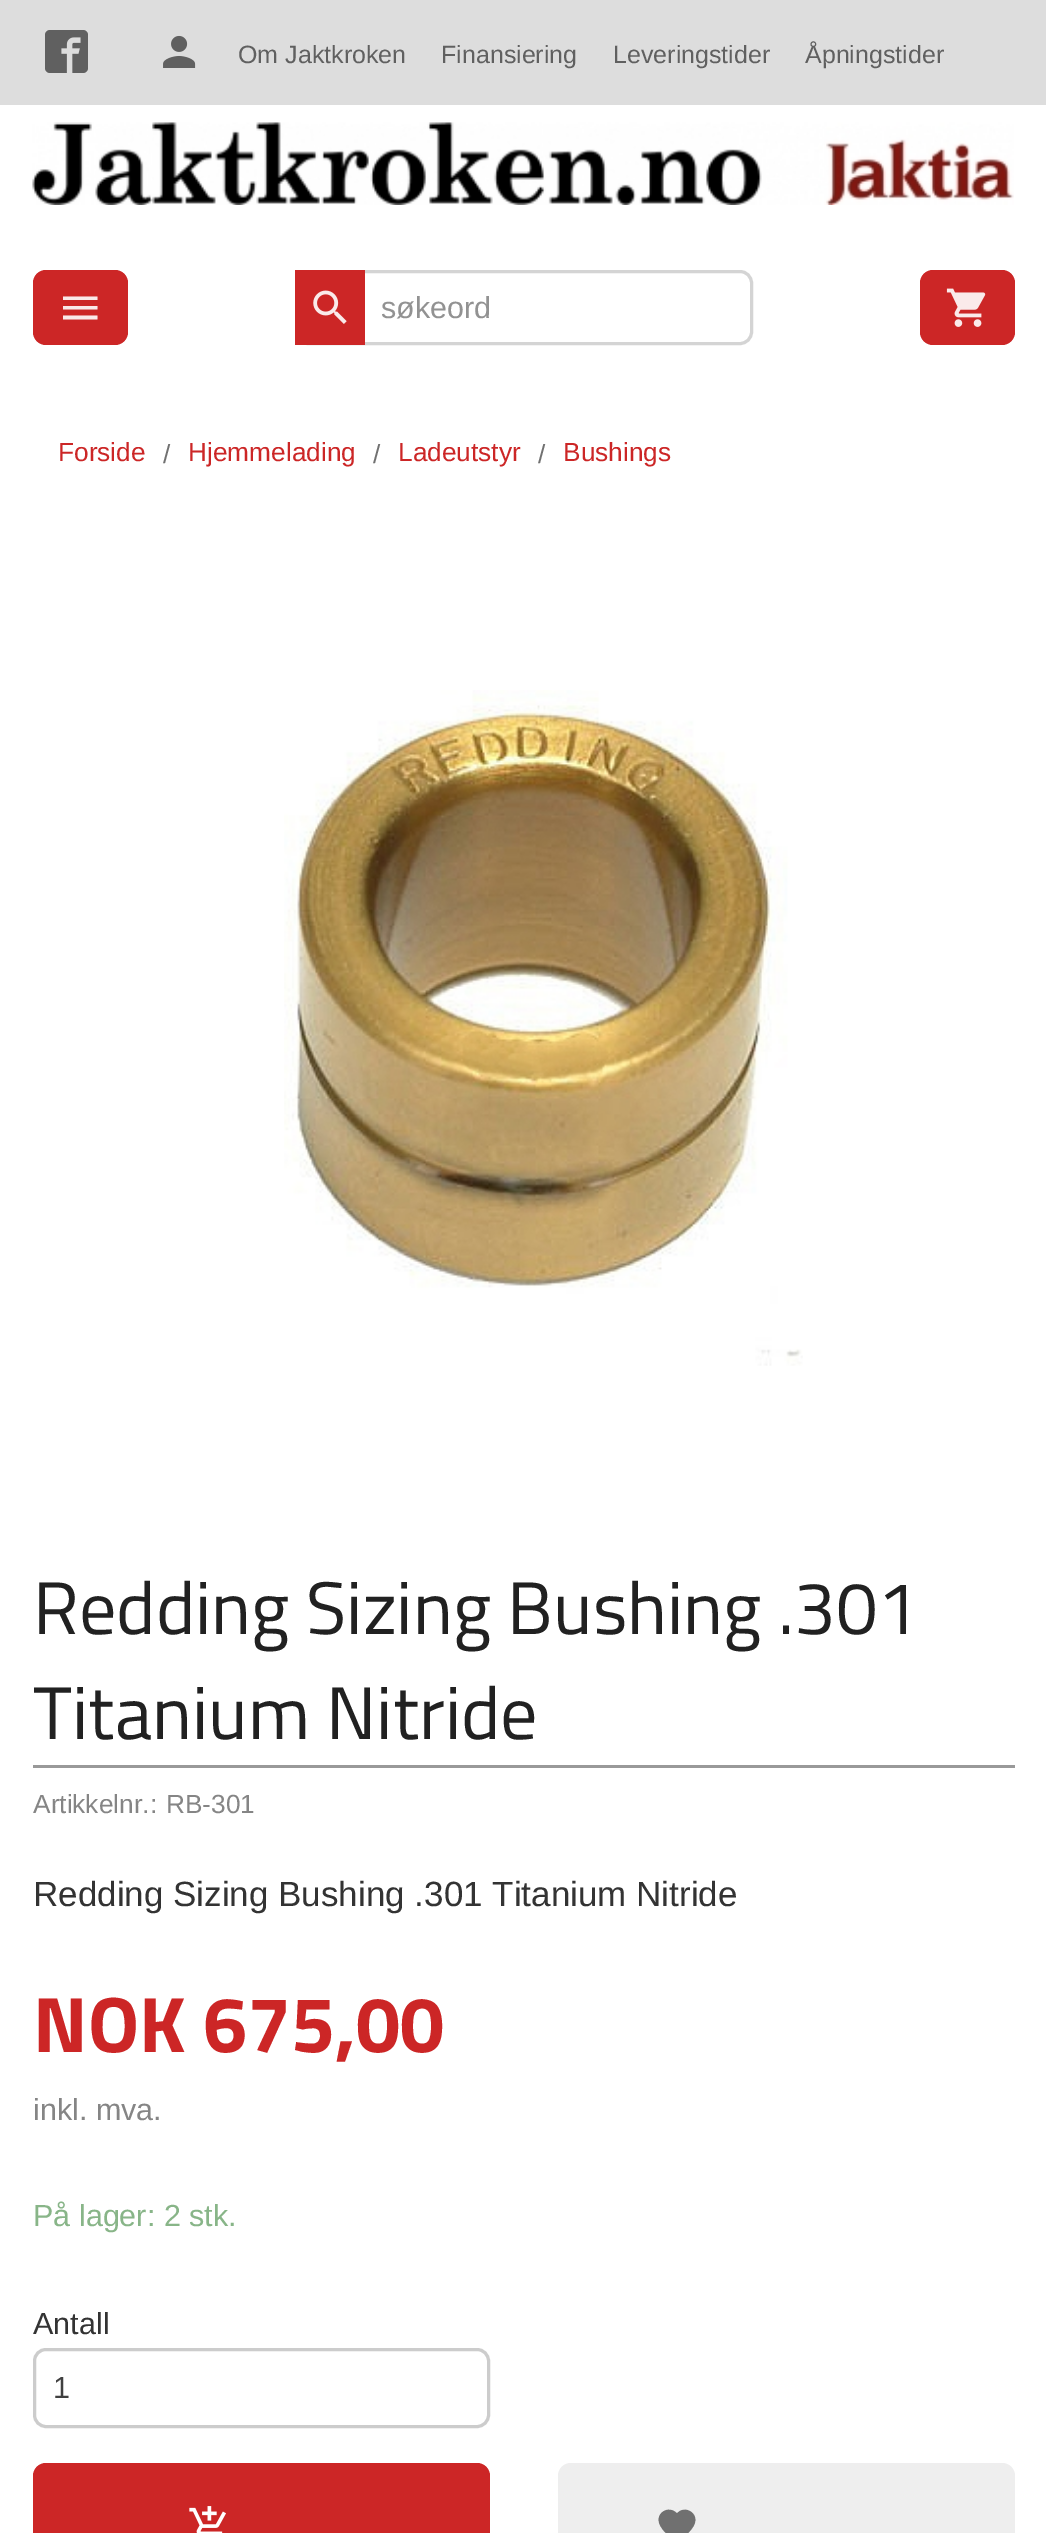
%!PS
<< /PageSize [1046 2533] >> setpagedevice
/rgb { dup -16 bitshift 255 div exch dup -8 bitshift 255 and 255 div exch 255 and 255 div setrgbcolor } def
/font { [ exch dup neg 0 0 3 -1 roll 0 0 ] selectfont } def
/text { moveto show } def
/roundrect { 5 dict begin { /r /h /w /y /x } { exch def } forall
  x r add y moveto x w add y 2 copy h add r arct x w add y h add x 1 index r arct
  x y h add x y r arct x y 2 copy exch w add exch r arct closepath end } def
/picture { 5 dict begin { /h /w /y /x /name } { exch def } forall
  gsave x y translate w h scale
  w h 8 [w 0 0 h 0 0] name (r) file false 3 colorimage grestore end } def
0 2533 translate 1 -1 scale
4 setmiterlimit
/s1 { /LiberationSans-Regular 25 font 16#606060 rgb } def
/s2 { /LiberationSans-Regular 30.5 font 16#929292 rgb } def
/s3 { /LiberationSans-Regular 26.25 font 16#CC2626 rgb } def
/s4 { /LiberationSans-Regular 26.25 font 16#717171 rgb } def
/s5 { /TitilliumWeb-Regular 74.4 font 16#212121 rgb } def
/s6 { /LiberationSans-Regular 26.25 font 16#858585 rgb } def
/s7 { /LiberationSans-Regular 35 font 16#333333 rgb } def
/s8 { /TitilliumWeb-Bold 78.75 font 16#CC2626 rgb } def
/s9 { /LiberationSans-Regular 30.5 font 16#858585 rgb } def
/s10 { /LiberationSans-Regular 30.5 font 16#88B588 rgb } def
/s11 { /LiberationSans-Regular 30.5 font 16#333333 rgb } def
/s12 { /LiberationSans-Regular 30.5 font 16#404040 rgb } def
16#FFFFFF rgb
0 0 1046 2533 rectfill
16#DDDDDD rgb
0 0 1046 105 rectfill
16#606060 rgb
45 30 43 43 5 roundrect fill
(pic1.raw) 61 37 20 36 picture
(pic2.raw) 163 35 33 33 picture
s1
(Om Jaktkroken) 238 63 text
(Finansiering) 441 63 text
(Leveringstider) 613 63 text
(Åpningstider) 805 63 text
(pic3.raw) 32 122 982 83 picture
16#CC2626 rgb
33 270 95 75 13 roundrect fill
16#FAE9E9 rgb
63 319.5 moveto 97.5 319.5 lineto 97.5 315.5 lineto 63 315.5 lineto closepath 63 309.5 moveto 97.5 309.5 lineto 97.5 306 lineto 63 306 lineto closepath 63 296.5 moveto 63 300 lineto 97.5 300 lineto 97.5 296.5 lineto closepath fill
16#D4D4D4 rgb
3 setlinewidth
296.5 271.5 455 72 11.5 roundrect stroke
16#CC2626 rgb
295 270 70 75 rectfill
(pic4.raw) 313 290 34 34 picture
s2
(søkeord) 381 318 text
16#CC2626 rgb
920 270 95 75 13 roundrect fill
(pic5.raw) 946 288 40 39 picture
s3
(Forside) 58 461 text
s4
(/) 163 463 text
s3
(Hjemmelading) 188 461 text
s4
(/) 373 463 text
s3
(Ladeutstyr) 398 461 text
s4
(/) 538 463 text
s3
(Bushings) 563 461 text
(pic6.raw) 284 690 519 676 picture
16#999999 rgb
33 1765 982 3 rectfill
s5
(Redding Sizing Bushing .301) 33 1634 text
(Titanium Nitride) 33 1739 text
s6
(Artikkelnr.:) 33 1813 text
(RB-301) 166 1813 text
s7
(Redding Sizing Bushing .301 Titanium Nitride) 33 1906 text
s8
(NOK 675,00) 33 2052 text
s9
(inkl. mva.) 33 2120 text
s10
(På lager: 2 stk.) 33 2226 text
s11
(Antall) 33 2334 text
16#CCCCCC rgb
34.5 2349.5 454 77 11.5 roundrect stroke
s12
(1) 53 2398 text
16#CC2626 rgb
33 2463 457 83 13 roundrect fill
(pic7.raw) 189 2506 37 27 picture
16#EEEEEE rgb
558 2463 457 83 13 roundrect fill
16#707070 rgb
677 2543 moveto 671 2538 662.5 2531.5 659.5 2524 curveto 655 2513 669 2504.5 677 2513.5 curveto 684.5 2504.5 699 2513 694.5 2524 curveto 691.5 2531.5 682.5 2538 677 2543 curveto closepath fill
showpage
